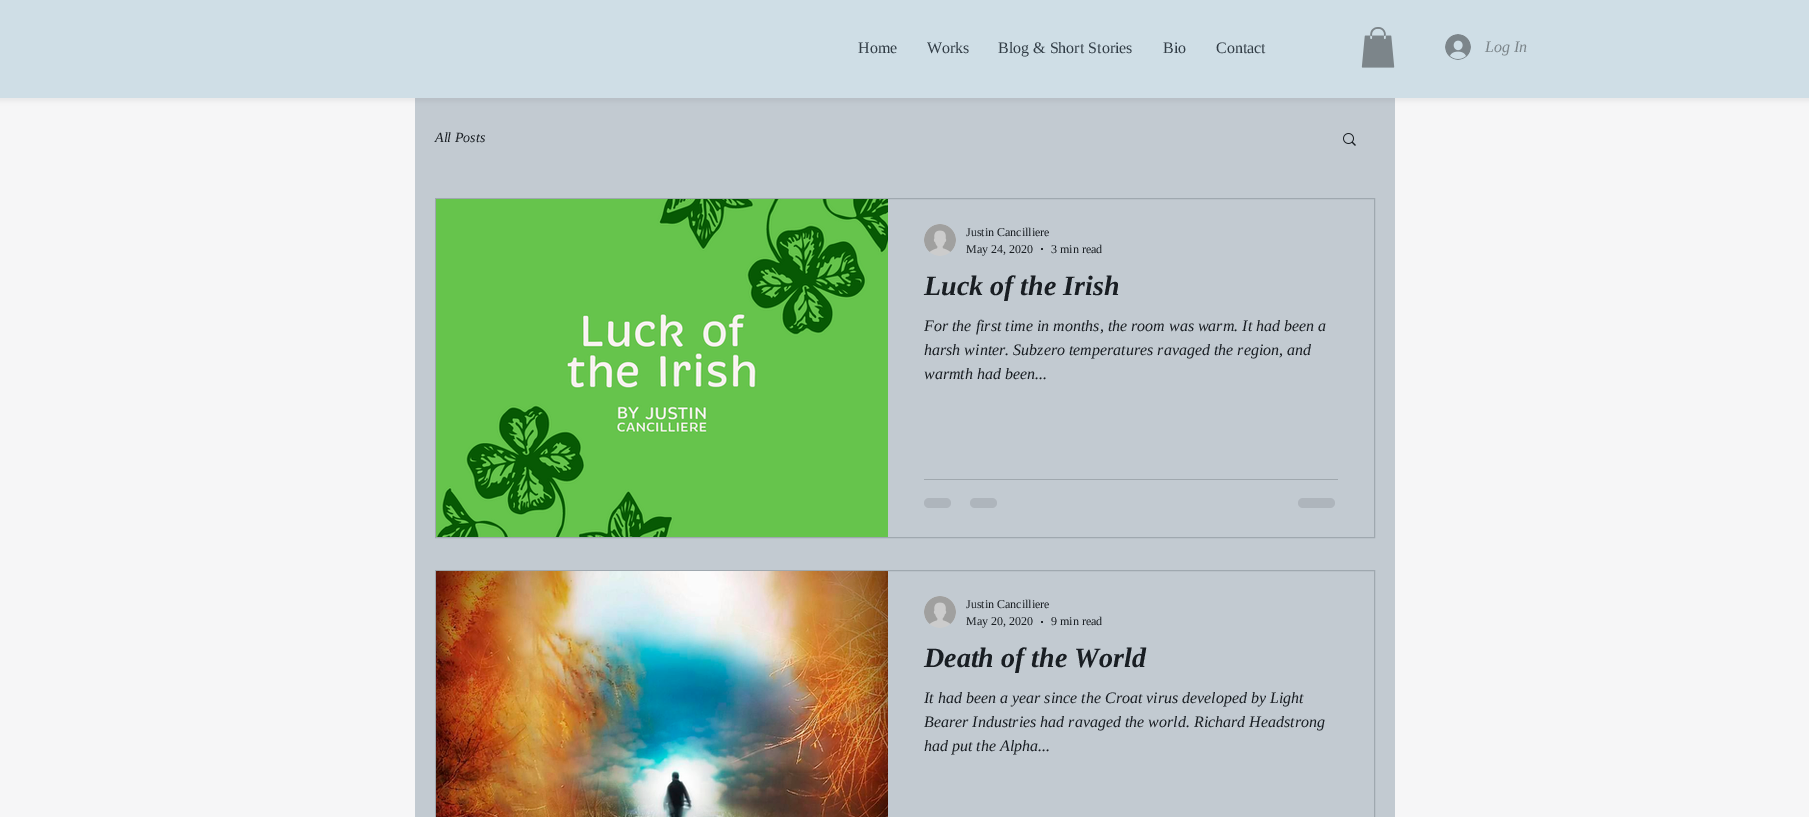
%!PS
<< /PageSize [1809 817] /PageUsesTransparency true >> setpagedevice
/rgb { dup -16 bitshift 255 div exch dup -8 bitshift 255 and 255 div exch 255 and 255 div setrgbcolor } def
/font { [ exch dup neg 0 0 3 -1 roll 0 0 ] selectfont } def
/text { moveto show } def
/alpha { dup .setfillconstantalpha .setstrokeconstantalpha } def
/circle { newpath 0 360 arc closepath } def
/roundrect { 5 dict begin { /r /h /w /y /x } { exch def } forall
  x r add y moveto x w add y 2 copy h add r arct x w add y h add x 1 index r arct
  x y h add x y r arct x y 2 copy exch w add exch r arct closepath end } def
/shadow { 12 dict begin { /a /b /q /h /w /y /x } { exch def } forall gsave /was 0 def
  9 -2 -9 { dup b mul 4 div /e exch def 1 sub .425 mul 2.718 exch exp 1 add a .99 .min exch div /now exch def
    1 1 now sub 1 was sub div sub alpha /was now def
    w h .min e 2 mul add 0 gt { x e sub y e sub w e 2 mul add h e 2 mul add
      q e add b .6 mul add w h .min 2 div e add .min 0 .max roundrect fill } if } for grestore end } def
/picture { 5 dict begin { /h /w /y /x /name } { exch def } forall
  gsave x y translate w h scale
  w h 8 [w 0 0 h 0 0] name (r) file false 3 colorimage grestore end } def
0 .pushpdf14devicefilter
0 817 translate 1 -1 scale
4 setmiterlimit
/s1 { /LiberationSerif-Regular 16 font 16#323D46 rgb } def
/s2 { /LiberationSerif-Italic 16 font 16#7C858A rgb } def
/s3 { /LiberationSerif-Italic 14 font 16#191E23 rgb } def
/s4 { /LiberationSerif-Regular 12 font 16#191E23 rgb } def
/s5 { /LiberationSerif-BoldItalic 28 font 16#191E23 rgb } def
/s6 { /LiberationSerif-Italic 16 font 16#191E23 rgb } def
16#F6F6F7 rgb
0 0 1809 817 rectfill
16#C2CAD1 rgb
415 98 980 719 rectfill
16#000000 rgb
-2 -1 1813 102 0 2.5 0.05 shadow
16#CFDEE6 rgb
0 0 1809 98 rectfill
s1
(Home) 858 53 text
(Works) 927 53 text
(Blog & Short Stories) 998 53 text
(Bio) 1163 53 text
(Contact) 1216 53 text
(pic1.raw) 1361 27 34 41 picture
(pic2.raw) 1445 34 26 26 picture
s2
(Log In) 1485 52 text
s3
(All Posts) 435 142 text
(pic3.raw) 1343 133 13 13 picture
16#9FA8AF rgb
435.5 198.5 939 339 rectstroke
(pic4.raw) 436 199 452 338 picture
(pic5.raw) 924 224 32 32 picture
s4
(Justin Cancilliere) 966 236 text
(May 24, 2020) 966 253 text
1042 249 1 circle fill
(3 min read) 1051 253 text
s5
(Luck of the Irish) 924 295 text
s6
(For the first time in months, the room was warm. It had been a) 924 331 text
(harsh winter. Subzero temperatures ravaged the region, and) 924 355 text
(warmth had been...) 924 379 text
16#A0A8AE rgb
924 479 414 1 rectfill
16#AEB5BC rgb
924 498 27 10 5 roundrect fill
970 498 27 10 5 roundrect fill
1298 498 37 10 5 roundrect fill
16#9FA8AF rgb
435.5 570.5 939 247 rectstroke
(pic6.raw) 436 571 452 246 picture
(pic5.raw) 924 596 32 32 picture
s4
(Justin Cancilliere) 966 608 text
(May 20, 2020) 966 625 text
1042 622 1 circle fill
(9 min read) 1051 625 text
s5
(Death of the World) 924 667 text
s6
(It had been a year since the Croat virus developed by Light) 924 703 text
(Bearer Industries had ravaged the world. Richard Headstrong) 924 727 text
(had put the Alpha...) 924 751 text
.poppdf14devicefilter showpage
